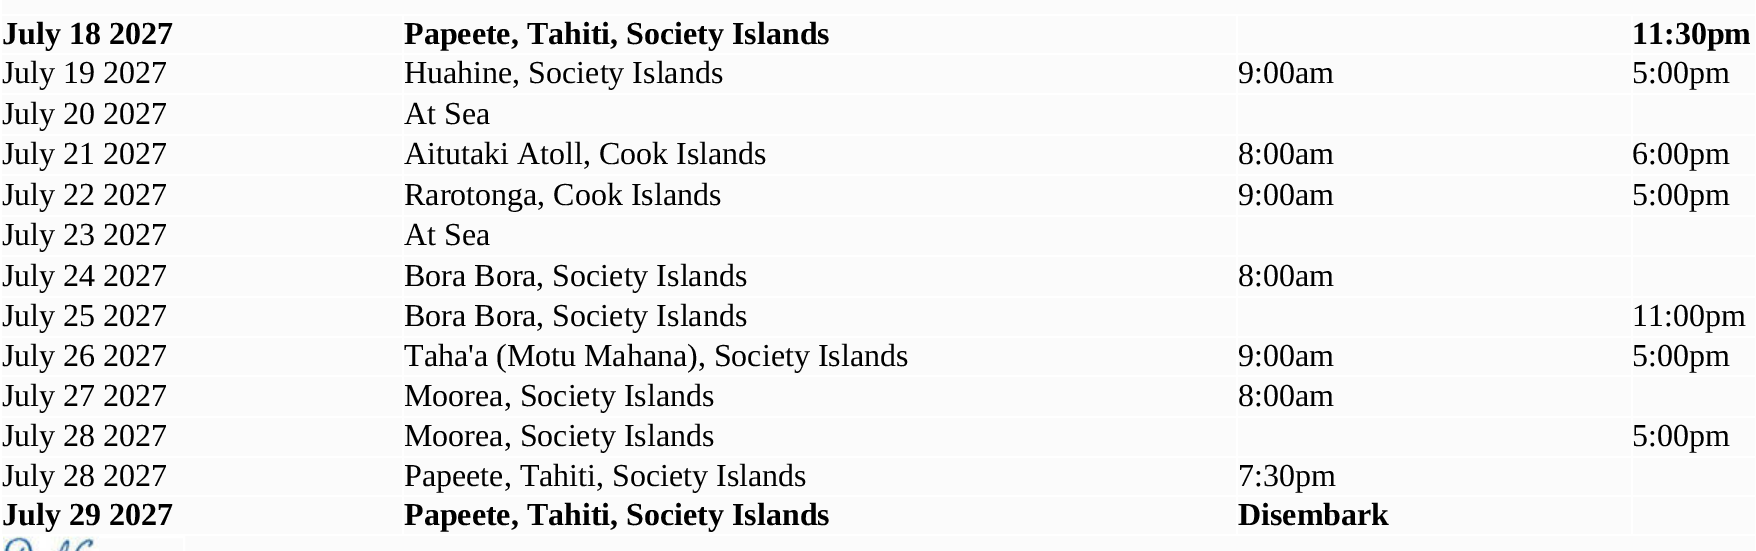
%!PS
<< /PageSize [1756 551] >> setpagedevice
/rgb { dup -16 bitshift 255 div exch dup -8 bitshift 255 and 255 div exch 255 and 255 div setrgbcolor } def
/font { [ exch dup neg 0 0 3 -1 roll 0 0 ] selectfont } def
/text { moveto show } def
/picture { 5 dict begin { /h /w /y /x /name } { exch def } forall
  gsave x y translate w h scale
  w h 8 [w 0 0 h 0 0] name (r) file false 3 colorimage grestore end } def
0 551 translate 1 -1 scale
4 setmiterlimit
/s1 { /LiberationSerif-Bold 32 font 16#000000 rgb } def
/s2 { /LiberationSerif-Regular 32 font 16#000000 rgb } def
16#FBFBFB rgb
0 0 1756 551 rectfill
16#FFFFFF rgb
1755 0 1 551 rectfill
0 0 2 551 rectfill
1631 14 125 2 rectfill
1631 53 125 2 rectfill
1631 93 125 2 rectfill
1631 134 125 2 rectfill
1631 174 125 2 rectfill
1631 215 125 2 rectfill
1631 255 125 2 rectfill
1631 296 125 2 rectfill
1631 336 125 2 rectfill
1631 375 125 2 rectfill
1631 416 125 2 rectfill
1631 456 125 2 rectfill
1631 495 125 2 rectfill
0 534 1756 2 rectfill
1631 495 2 41 rectfill
1236 495 396 2 rectfill
1631 456 2 41 rectfill
1236 456 396 2 rectfill
1631 416 2 42 rectfill
1236 416 396 2 rectfill
1631 375 2 42 rectfill
1236 375 396 2 rectfill
1631 336 2 41 rectfill
1236 336 396 2 rectfill
1631 296 2 42 rectfill
1236 296 396 2 rectfill
1631 255 2 42 rectfill
1236 255 396 2 rectfill
1631 215 2 42 rectfill
1236 215 396 2 rectfill
1631 174 2 42 rectfill
1236 174 396 2 rectfill
1631 134 2 42 rectfill
1236 134 396 2 rectfill
1631 93 2 42 rectfill
1236 93 396 2 rectfill
1631 53 2 42 rectfill
1236 53 396 2 rectfill
1631 14 2 40 rectfill
1236 14 396 2 rectfill
1236 495 2 41 rectfill
402 495 836 2 rectfill
1236 456 2 41 rectfill
402 456 836 2 rectfill
1236 416 2 42 rectfill
402 416 836 2 rectfill
1236 375 2 42 rectfill
402 375 836 2 rectfill
1236 336 2 41 rectfill
402 336 836 2 rectfill
1236 296 2 42 rectfill
402 296 836 2 rectfill
1236 255 2 42 rectfill
402 255 836 2 rectfill
1236 215 2 42 rectfill
402 215 836 2 rectfill
1236 174 2 42 rectfill
402 174 836 2 rectfill
1236 134 2 42 rectfill
402 134 836 2 rectfill
1236 93 2 42 rectfill
402 93 836 2 rectfill
1236 53 2 42 rectfill
402 53 836 2 rectfill
1236 14 2 40 rectfill
402 14 836 2 rectfill
402 495 2 41 rectfill
0 495 404 2 rectfill
402 456 2 41 rectfill
0 456 404 2 rectfill
402 416 2 42 rectfill
0 416 404 2 rectfill
402 375 2 42 rectfill
0 375 404 2 rectfill
402 336 2 41 rectfill
0 336 404 2 rectfill
402 296 2 42 rectfill
0 296 404 2 rectfill
402 255 2 42 rectfill
0 255 404 2 rectfill
402 215 2 42 rectfill
0 215 404 2 rectfill
402 174 2 42 rectfill
0 174 404 2 rectfill
402 134 2 42 rectfill
0 134 404 2 rectfill
402 93 2 42 rectfill
0 93 404 2 rectfill
402 53 2 42 rectfill
0 53 404 2 rectfill
402 14 2 40 rectfill
0 14 404 2 rectfill
s1
(July 18 2027) 2 44 text
(Papeete, Tahiti, Society Islands) 404 44 text
(11:30pm) 1632 44 text
s2
(July 19 2027) 2 83 text
(Huahine, Society Islands) 404 83 text
(9:00am) 1238 83 text
(5:00pm) 1632 83 text
(July 20 2027) 2 124 text
(At Sea) 404 124 text
(July 21 2027) 2 164 text
(Aitutaki Atoll, Cook Islands) 404 164 text
(8:00am) 1238 164 text
(6:00pm) 1632 164 text
(July 22 2027) 2 205 text
(Rarotonga, Cook Islands) 404 205 text
(9:00am) 1238 205 text
(5:00pm) 1632 205 text
(July 23 2027) 2 245 text
(At Sea) 404 245 text
(July 24 2027) 2 286 text
(Bora Bora, Society Islands) 404 286 text
(8:00am) 1238 286 text
(July 25 2027) 2 326 text
(Bora Bora, Society Islands) 404 326 text
(11:00pm) 1632 326 text
(July 26 2027) 2 366 text
(Taha'a \(Motu Mahana\), Society Islands) 404 366 text
(9:00am) 1238 366 text
(5:00pm) 1632 366 text
(July 27 2027) 2 406 text
(Moorea, Society Islands) 404 406 text
(8:00am) 1238 406 text
(July 28 2027) 2 446 text
(Moorea, Society Islands) 404 446 text
(5:00pm) 1632 446 text
(July 28 2027) 2 486 text
(Papeete, Tahiti, Society Islands) 404 486 text
(7:30pm) 1238 486 text
s1
(July 29 2027) 2 525 text
(Papeete, Tahiti, Society Islands) 404 525 text
(Disembark) 1238 525 text
16#FFFFFF rgb
2 setlinewidth
3 537 181 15 rectstroke
(pic1.raw) 3 536 96 15 picture
showpage
